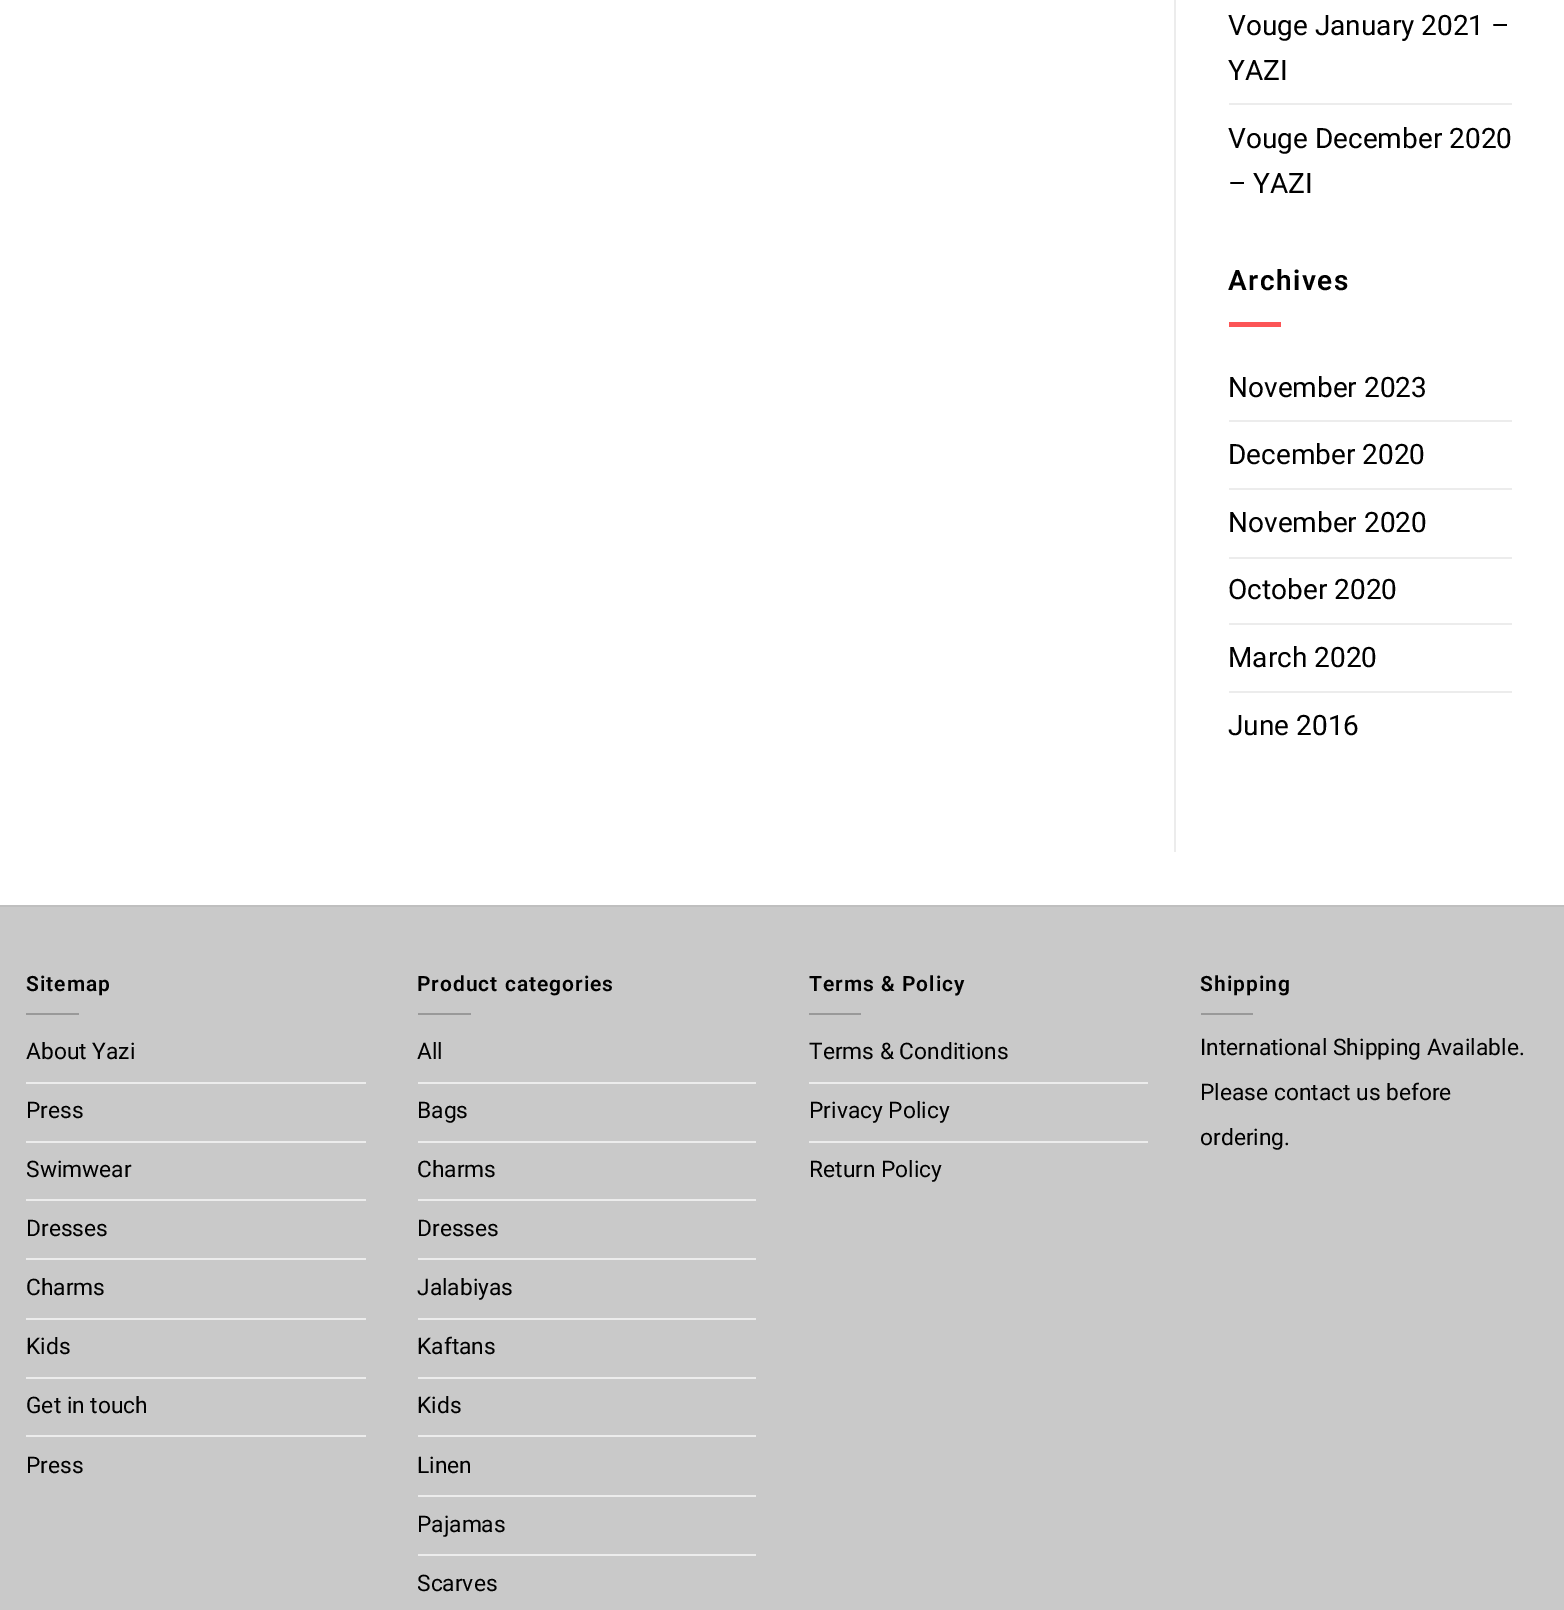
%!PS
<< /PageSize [1564 1610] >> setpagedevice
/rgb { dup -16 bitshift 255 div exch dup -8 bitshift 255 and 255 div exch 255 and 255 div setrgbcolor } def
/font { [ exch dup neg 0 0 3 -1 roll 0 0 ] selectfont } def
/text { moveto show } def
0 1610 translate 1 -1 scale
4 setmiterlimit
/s1 { /Roboto-Regular 28 font 16#000000 rgb } def
/s2 { /Roboto-Regular 22.75 font 16#000000 rgb } def
16#FFFFFF rgb
0 0 1564 1610 rectfill
16#ECECEC rgb
1174 0 2 852 rectfill
s1
(Vouge January 2021 –) 1228 35 text
(YAZI) 1228 80 text
16#ECECEC rgb
1229 103 283 2 rectfill
s1
(Vouge December 2020) 1228 148 text
(– YAZI) 1228 193 text
/Roboto-SemiBold 28 font
1228 290 moveto 1.5 0 (Archives) ashow
16#FC5556 rgb
1229 322 52 5 rectfill
s1
(November 2023) 1228 397 text
16#ECECEC rgb
1229 420 283 2 rectfill
s1
(December 2020) 1228 464 text
16#ECECEC rgb
1229 488 283 2 rectfill
s1
(November 2020) 1228 532 text
16#ECECEC rgb
1229 557 283 2 rectfill
s1
(October 2020) 1228 599 text
16#ECECEC rgb
1229 623 283 2 rectfill
s1
(March 2020) 1228 667 text
16#ECECEC rgb
1229 691 283 2 rectfill
s1
(June 2016) 1228 735 text
16#C9C9C9 rgb
0 907 1564 703 rectfill
16#BFBFBF rgb
0 905 1564 2 rectfill
/Roboto-SemiBold 21 font
16#000000 rgb
26 991 moveto 1 0 (Sitemap) ashow
16#999999 rgb
26 1013 53 2 rectfill
s2
(About Yazi) 26 1059 text
16#ECECEC rgb
26 1082 340 2 rectfill
s2
(Press) 26 1118 text
16#ECECEC rgb
26 1141 340 2 rectfill
s2
(Swimwear) 26 1177 text
16#ECECEC rgb
26 1199 340 2 rectfill
s2
(Dresses) 26 1236 text
16#ECECEC rgb
26 1258 340 2 rectfill
s2
(Charms) 26 1295 text
16#ECECEC rgb
26 1318 340 2 rectfill
s2
(Kids) 26 1354 text
16#ECECEC rgb
26 1377 340 2 rectfill
s2
(Get in touch) 26 1413 text
16#ECECEC rgb
26 1435 340 2 rectfill
s2
(Press) 26 1473 text
/Roboto-SemiBold 21 font
417 991 moveto 1 0 (Product categories) ashow
16#999999 rgb
418 1013 53 2 rectfill
s2
(All) 417 1059 text
16#ECECEC rgb
418 1082 338 2 rectfill
s2
(Bags) 417 1118 text
16#ECECEC rgb
418 1141 338 2 rectfill
s2
(Charms) 417 1177 text
16#ECECEC rgb
418 1199 338 2 rectfill
s2
(Dresses) 417 1236 text
16#ECECEC rgb
418 1258 338 2 rectfill
s2
(Jalabiyas) 417 1295 text
16#ECECEC rgb
418 1318 338 2 rectfill
s2
(Kaftans) 417 1354 text
16#ECECEC rgb
418 1377 338 2 rectfill
s2
(Kids) 417 1413 text
16#ECECEC rgb
418 1435 338 2 rectfill
s2
(Linen) 417 1473 text
16#ECECEC rgb
418 1495 338 2 rectfill
s2
(Pajamas) 417 1532 text
16#ECECEC rgb
418 1554 338 2 rectfill
s2
(Scarves) 417 1591 text
/Roboto-SemiBold 21 font
809 991 moveto 1 0 (Terms & Policy) ashow
16#999999 rgb
809 1013 52 2 rectfill
s2
(Terms & Conditions) 809 1059 text
16#ECECEC rgb
809 1082 339 2 rectfill
s2
(Privacy Policy) 809 1118 text
16#ECECEC rgb
809 1141 339 2 rectfill
s2
(Return Policy) 809 1177 text
/Roboto-SemiBold 21 font
1200 991 moveto 1 0 (Shipping) ashow
16#999999 rgb
1201 1013 52 2 rectfill
s2
(International Shipping Available.) 1200 1055 text
(Please contact us before) 1200 1100 text
(ordering.) 1200 1145 text
showpage
